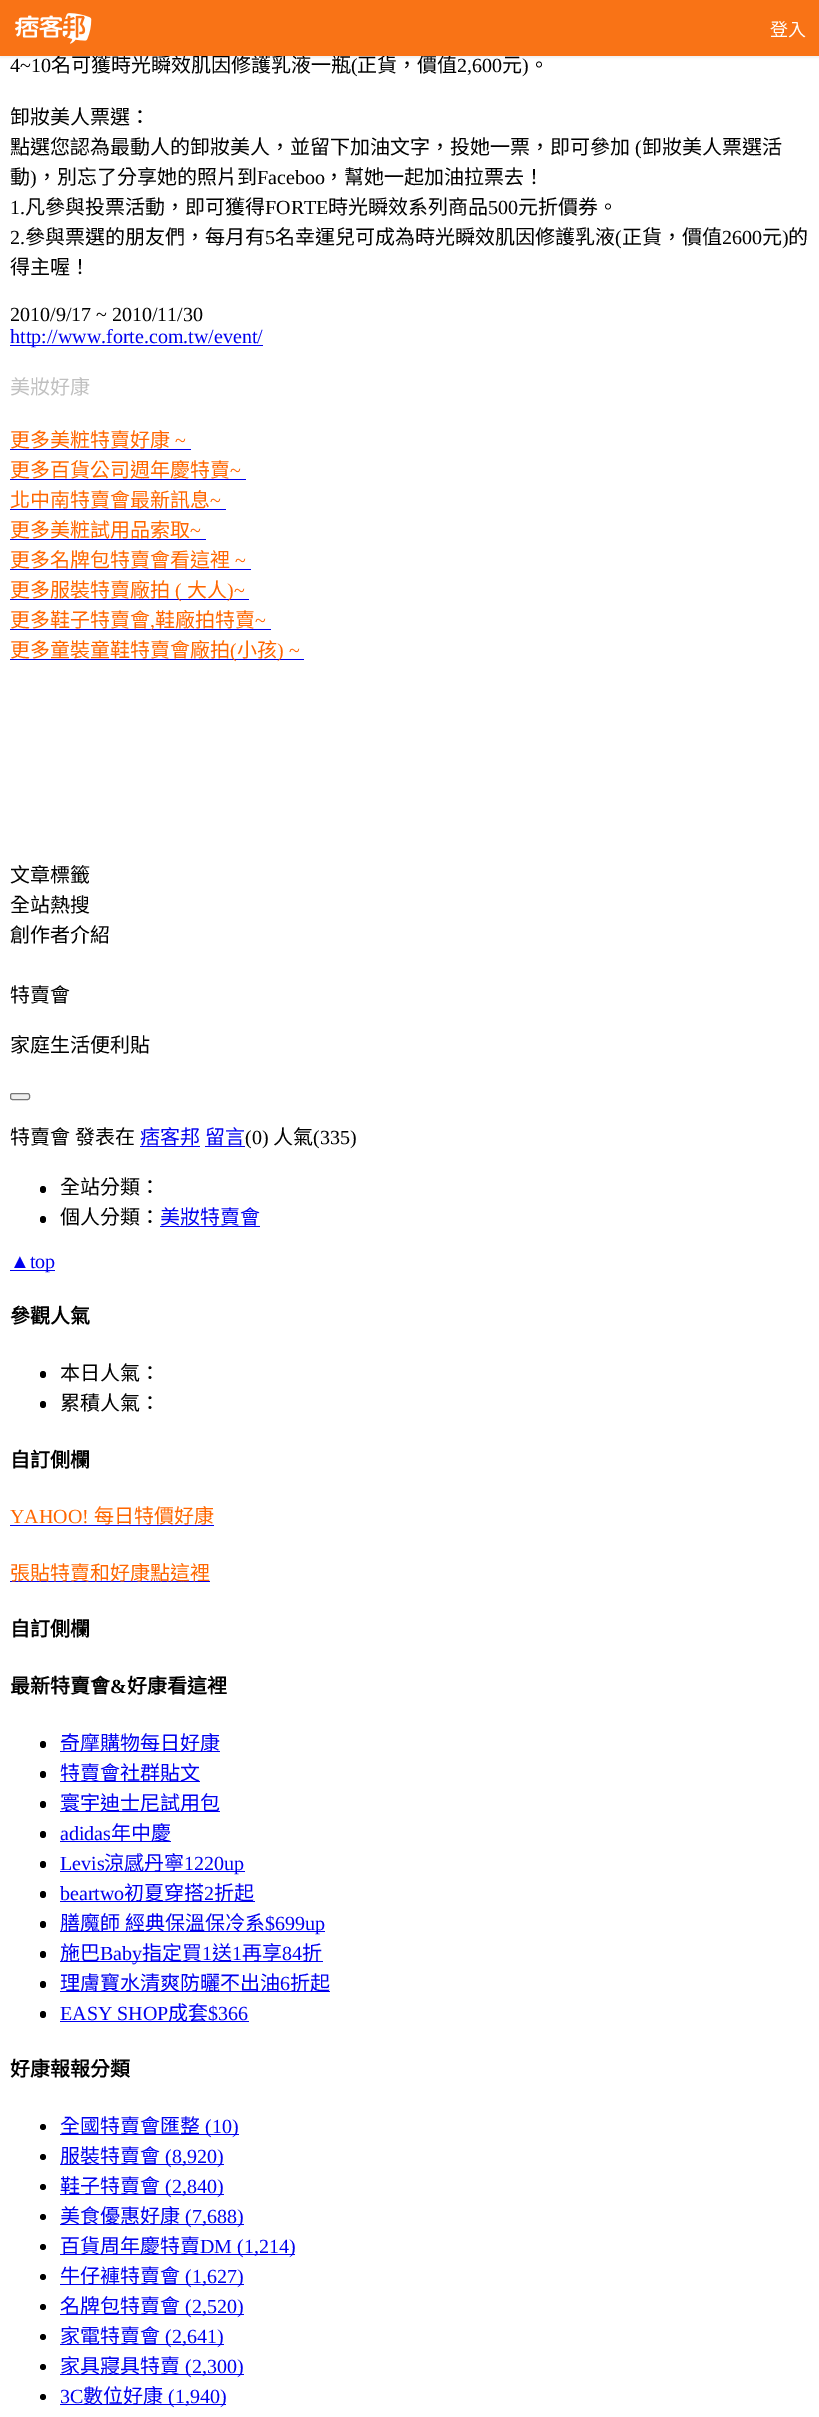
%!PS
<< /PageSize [819 2417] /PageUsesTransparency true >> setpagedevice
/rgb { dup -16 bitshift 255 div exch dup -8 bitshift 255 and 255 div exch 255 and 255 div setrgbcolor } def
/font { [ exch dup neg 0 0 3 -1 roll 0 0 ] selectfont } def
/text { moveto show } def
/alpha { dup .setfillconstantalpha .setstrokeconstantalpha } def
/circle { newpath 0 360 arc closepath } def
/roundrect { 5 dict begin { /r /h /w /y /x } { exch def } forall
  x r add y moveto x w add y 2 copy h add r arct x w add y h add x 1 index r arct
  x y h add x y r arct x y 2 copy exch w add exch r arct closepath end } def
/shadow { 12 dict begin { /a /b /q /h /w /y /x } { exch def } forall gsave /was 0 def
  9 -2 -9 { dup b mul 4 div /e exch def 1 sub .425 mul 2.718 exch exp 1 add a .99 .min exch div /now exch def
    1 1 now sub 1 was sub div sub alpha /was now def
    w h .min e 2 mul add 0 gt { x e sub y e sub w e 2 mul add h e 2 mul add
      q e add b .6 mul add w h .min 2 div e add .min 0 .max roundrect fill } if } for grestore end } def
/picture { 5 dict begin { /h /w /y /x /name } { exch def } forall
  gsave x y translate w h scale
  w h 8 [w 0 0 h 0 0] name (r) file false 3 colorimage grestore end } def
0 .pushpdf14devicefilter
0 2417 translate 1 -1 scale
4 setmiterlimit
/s1 { /NotoSansCJKTC-Regular 20 font 16#000000 rgb } def
/s2 { /NotoSansCJKTC-Regular 18 font 16#FFFFFF rgb } def
/s3 { /LiberationSerif-Regular 20 font 16#000000 rgb } def
/s4 { /LiberationSerif-Regular 20 font 16#0000EE rgb } def
/s5 { /NotoSansCJKTC-Regular 20 font 16#C0C0C0 rgb } def
/s6 { /NotoSansCJKTC-Regular 20 font 16#FF6600 rgb } def
/s7 { /LiberationSerif-Regular 20 font 16#FF6600 rgb } def
/s8 { /NotoSansCJKTC-Regular 20 font 16#0000EE rgb } def
/s9 { /NotoSansCJKTC-Bold 20 font 16#000000 rgb } def
/s10 { /LiberationSerif-Bold 20 font 16#000000 rgb } def
16#FFFFFF rgb
0 0 819 2417 rectfill
16#000000 rgb
0 1 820 57 0 1 0.05 shadow
s1
(名可獲時光瞬效肌因修護乳液一瓶) 51 72 text
(正貨，價值) 357 72 text
16#F97316 rgb
0 0 819 56 rectfill
(pic1.raw) 15 13 77 31 picture
s2
(登入) 770 36 text
s3
(4~10) 10 72 text
(\() 351 72 text
(2,600) 457 72 text
s1
(元) 502 72 text
s3
(\)) 522 72 text
s1
(。) 529 72 text
(卸妝美人票選：) 10 124 text
(點選您認為最動人的卸妝美人，並留下加油文字，投她一票，即可參加) 10 154 text
s3
(\() 635 154 text
s1
(卸妝美人票選活) 642 154 text
(動) 10 184 text
s3
(\)) 30 184 text
s1
(，別忘了分享她的照片到) 37 184 text
s3
(Faceboo) 257 184 text
s1
(，幫她一起加油拉票去！) 324 184 text
s3
(1.) 10 214 text
s1
(凡參與投票活動，即可獲得) 25 214 text
s3
(FORTE) 265 214 text
s1
(時光瞬效系列商品) 328 214 text
s3
(500) 488 214 text
s1
(元折價券。) 518 214 text
s3
(2.) 10 244 text
s1
(參與票選的朋友們，每月有) 25 244 text
s3
(5) 265 244 text
s1
(名幸運兒可成為時光瞬效肌因修護乳液) 275 244 text
s3
(\() 615 244 text
s1
(正貨，價值) 622 244 text
s3
(2600) 722 244 text
s1
(元) 762 244 text
s3
(\)) 782 244 text
s1
(的) 788 244 text
(得主喔！) 10 274 text
s3
(2010/9/17 ~ 2010/11/30) 10 321 text
16#0000EE rgb
10 345 253 1 rectfill
(http://www.forte.com.tw/event/) 10 343 text
s5
(美妝好康) 10 394 text
s6
(更多美粧特賣好康) 10 447 text
s7
(~) 175 447 text
16#0000EE rgb
10 449 181 1 rectfill
s6
(更多百貨公司週年慶特賣) 10 477 text
s7
(~) 230 477 text
16#0000EE rgb
10 479 236 1 rectfill
s6
(北中南特賣會最新訊息) 10 507 text
s7
(~) 210 507 text
16#0000EE rgb
10 509 216 1 rectfill
s6
(更多美粧試用品索取) 10 537 text
s7
(~) 190 537 text
16#0000EE rgb
10 539 196 1 rectfill
s6
(更多名牌包特賣會看這裡) 10 567 text
s7
(~) 235 567 text
16#0000EE rgb
10 569 241 1 rectfill
s6
(更多服裝特賣廠拍) 10 597 text
16#0000EE rgb
10 599 239 1 rectfill
s7
(\() 175 597 text
s6
(大人) 187 597 text
s7
(\)~) 227 597 text
s6
(更多鞋子特賣會) 10 627 text
(鞋廠拍特賣) 155 627 text
s7
(~) 255 627 text
16#0000EE rgb
10 629 261 1 rectfill
s7
(,) 150 627 text
s6
(更多童裝童鞋特賣會廠拍) 10 657 text
16#0000EE rgb
10 659 294 1 rectfill
s7
(\() 230 657 text
s6
(小孩) 237 657 text
s7
(\) ~) 277 657 text
s1
(文章標籤) 10 882 text
(全站熱搜) 10 912 text
(創作者介紹) 10 942 text
(特賣會) 10 1002 text
(家庭生活便利貼) 10 1052 text
16#EFEFEF rgb
10.5 1093.5 19 6 2 roundrect gsave fill grestore
16#767676 rgb
stroke
s1
(特賣會) 10 1144 text
(發表在) 75 1144 text
s8
(痞客邦) 140 1144 text
140 1146 60 1 rectfill
(留言) 205 1144 text
205 1146 40 1 rectfill
s3
(\(0\)) 245 1144 text
s1
(人氣) 273 1144 text
s3
(\(335\)) 313 1144 text
40 1186 6 7 3 roundrect fill
s1
(全站分類：) 60 1194 text
40 1216 6 7 3 roundrect fill
(個人分類：) 60 1224 text
s8
(美妝特賣會) 160 1224 text
160 1226 100 1 rectfill
10 1270 45 1 rectfill
s4
(▲top) 10 1268 text
s9
(參觀人氣) 10 1323 text
40 1371 6 7 3 roundrect fill
s1
(本日人氣：) 60 1380 text
40 1401 6 7 3 roundrect fill
(累積人氣：) 60 1410 text
s9
(自訂側欄) 10 1467 text
s7
(YAHOO!) 10 1523 text
16#0000EE rgb
10 1525 204 1 rectfill
s6
(每日特價好康) 94 1523 text
16#0000EE rgb
10 1581 200 1 rectfill
s6
(張貼特賣和好康點這裡) 10 1580 text
s9
(自訂側欄) 10 1636 text
(最新特賣會) 10 1693 text
s10
(&) 110 1693 text
s9
(好康看這裡) 127 1693 text
40 1741 6 7 3 roundrect fill
16#0000EE rgb
60 1751 160 1 rectfill
s8
(奇摩購物每日好康) 60 1750 text
16#000000 rgb
40 1771 6 7 3 roundrect fill
16#0000EE rgb
60 1781 140 1 rectfill
(特賣會社群貼文) 60 1780 text
16#000000 rgb
40 1801 6 7 3 roundrect fill
16#0000EE rgb
60 1811 160 1 rectfill
(寰宇迪士尼試用包) 60 1810 text
16#000000 rgb
40 1831 6 7 3 roundrect fill
s4
(adidas) 60 1840 text
60 1841 111 1 rectfill
s8
(年中慶) 111 1840 text
16#000000 rgb
40 1861 6 7 3 roundrect fill
s4
(Levis) 60 1870 text
60 1871 185 1 rectfill
s8
(涼感丹寧) 104 1870 text
s4
(1220up) 184 1870 text
16#000000 rgb
40 1891 6 7 3 roundrect fill
s4
(beartwo) 60 1900 text
60 1901 195 1 rectfill
s8
(初夏穿搭) 124 1900 text
s4
(2) 204 1900 text
s8
(折起) 214 1900 text
16#000000 rgb
40 1921 6 7 3 roundrect fill
16#0000EE rgb
60 1931 265 1 rectfill
60 1930 moveto 1 0 32 (膳魔師 經典保溫保冷系) widthshow
s4
($699up) 265 1930 text
16#000000 rgb
40 1951 6 7 3 roundrect fill
16#0000EE rgb
60 1961 263 1 rectfill
s8
(施巴) 60 1960 text
s4
(Baby) 100 1960 text
s8
(指定買) 142 1960 text
s4
(1) 202 1960 text
s8
(送) 212 1960 text
s4
(1) 232 1960 text
s8
(再享) 242 1960 text
s4
(84) 282 1960 text
s8
(折) 302 1960 text
16#000000 rgb
40 1981 6 7 3 roundrect fill
16#0000EE rgb
60 1991 270 1 rectfill
(理膚寶水清爽防曬不出油) 60 1990 text
s4
(6) 280 1990 text
s8
(折起) 290 1990 text
16#000000 rgb
40 2011 6 7 3 roundrect fill
s4
(EASY SHOP) 60 2020 text
60 2021 189 1 rectfill
s8
(成套) 168 2020 text
s4
($366) 208 2020 text
s9
(好康報報分類) 10 2076 text
43 2127 3 circle fill
16#0000EE rgb
60 2134 151 1 rectfill
s8
(全國特賣會匯整) 60 2133 text
s4
(\(10) 205 2133 text
211 2134 28 1 rectfill
(\)) 232 2133 text
16#000000 rgb
43 2157 3 circle fill
16#0000EE rgb
60 2164 111 1 rectfill
s8
(服裝特賣會) 60 2163 text
s4
(\() 165 2163 text
171 2164 53 1 rectfill
(8,920\)) 172 2163 text
16#000000 rgb
43 2187 3 circle fill
16#0000EE rgb
60 2194 111 1 rectfill
s8
(鞋子特賣會) 60 2193 text
s4
(\() 165 2193 text
171 2194 53 1 rectfill
(2,840\)) 172 2193 text
16#000000 rgb
43 2217 3 circle fill
16#0000EE rgb
60 2224 131 1 rectfill
s8
(美食優惠好康) 60 2223 text
s4
(\() 185 2223 text
191 2224 53 1 rectfill
(7,688\)) 192 2223 text
16#000000 rgb
43 2247 3 circle fill
16#0000EE rgb
60 2254 235 1 rectfill
s8
(百貨周年慶特賣) 60 2253 text
s4
(DM \(1,214\)) 200 2253 text
16#000000 rgb
43 2277 3 circle fill
16#0000EE rgb
60 2284 131 1 rectfill
s8
(牛仔褲特賣會) 60 2283 text
s4
(\() 185 2283 text
191 2284 45 1 rectfill
(1,627) 192 2283 text
236 2284 8 1 rectfill
(\)) 237 2283 text
16#000000 rgb
43 2307 3 circle fill
16#0000EE rgb
60 2314 131 1 rectfill
s8
(名牌包特賣會) 60 2313 text
s4
(\() 185 2313 text
191 2314 53 1 rectfill
(2,520\)) 192 2313 text
16#000000 rgb
43 2337 3 circle fill
16#0000EE rgb
60 2344 111 1 rectfill
s8
(家電特賣會) 60 2343 text
s4
(\() 165 2343 text
171 2344 53 1 rectfill
(2,641\)) 172 2343 text
16#000000 rgb
43 2367 3 circle fill
16#0000EE rgb
60 2374 131 1 rectfill
s8
(家具寢具特賣) 60 2373 text
s4
(\() 185 2373 text
191 2374 53 1 rectfill
(2,300\)) 192 2373 text
16#000000 rgb
43 2397 3 circle fill
s4
(3C) 60 2403 text
60 2404 166 1 rectfill
s8
(數位好康) 83 2403 text
s4
(\(1,940\)) 168 2403 text
.poppdf14devicefilter showpage
